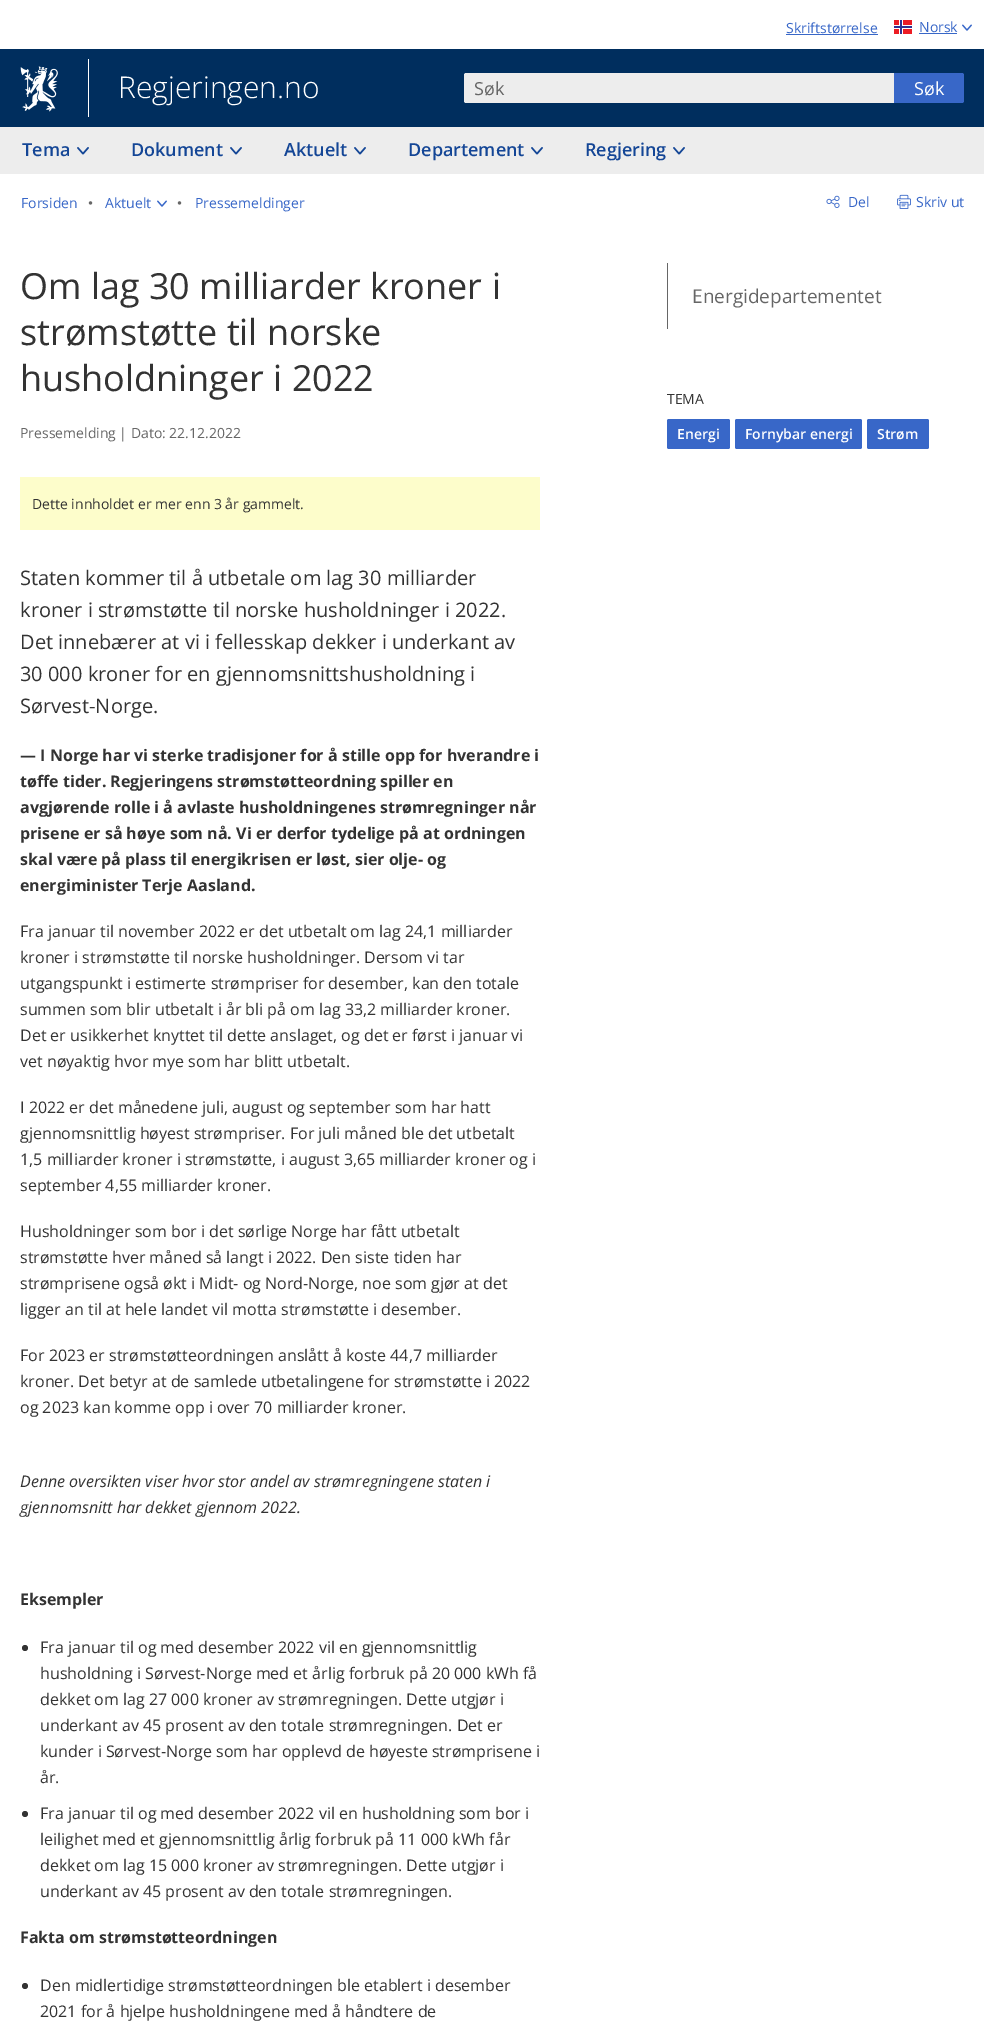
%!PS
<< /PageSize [984 2021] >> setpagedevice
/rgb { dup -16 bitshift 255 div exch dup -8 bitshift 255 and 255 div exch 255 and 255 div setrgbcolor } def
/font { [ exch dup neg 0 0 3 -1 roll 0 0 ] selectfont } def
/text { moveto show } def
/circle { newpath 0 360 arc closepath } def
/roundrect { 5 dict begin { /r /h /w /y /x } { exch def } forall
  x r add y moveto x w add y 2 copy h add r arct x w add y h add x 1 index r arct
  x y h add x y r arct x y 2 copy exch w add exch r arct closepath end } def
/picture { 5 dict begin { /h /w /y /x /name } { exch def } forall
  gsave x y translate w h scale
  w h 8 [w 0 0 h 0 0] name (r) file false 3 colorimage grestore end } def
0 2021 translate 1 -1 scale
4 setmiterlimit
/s1 { /OpenSans-Regular 14 font 16#3867C8 rgb } def
/s2 { /OpenSans-Light 30 font 16#FFFFFF rgb } def
/s3 { /OpenSans-Regular 18 font 16#666666 rgb } def
/s4 { /OpenSans-Regular 18 font 16#FFFFFF rgb } def
/s5 { /OpenSans-SemiBold 18 font 16#144696 rgb } def
/s6 { /OpenSans-Regular 36 font 16#333333 rgb } def
/s7 { /OpenSans-Regular 14 font 16#666666 rgb } def
/s8 { /OpenSans-Regular 14 font 16#333333 rgb } def
/s9 { /OpenSans-Regular 20 font 16#333333 rgb } def
/s10 { /OpenSans-Bold 16 font 16#333333 rgb } def
/s11 { /OpenSans-Regular 16 font 16#333333 rgb } def
/s12 { /OpenSans-Italic 16 font 16#333333 rgb } def
/s13 { /OpenSans-Regular 19 font 16#666666 rgb } def
/s14 { /OpenSans-SemiBold 14 font 16#FFFFFF rgb } def
16#FFFFFF rgb
0 0 984 2021 rectfill
s1
(Skriftstørrelse) 786 33 text
786 34 92 1 rectfill
(pic1.raw) 894 20 18 14 picture
(Norsk) 919 32 text
919 33 38 1 rectfill
(pic2.raw) 962 24 10 7 picture
16#002E5E rgb
0 49 984 78 rectfill
(pic3.raw) 20 66 38 46 picture
16#FFFFFF rgb
88 59 1 58 rectfill
s2
(Regjeringen.no) 118 98 text
16#EDEDED rgb
0 127 984 47 rectfill
466 73 moveto 894 73 lineto 894 103 lineto 466 103 lineto 465 103 464 102 464 101 curveto 464 75 lineto 464 74 465 73 466 73 curveto closepath fill
s3
(Søk) 474 95 text
16#3867C8 rgb
894 73 moveto 962 73 lineto 963 73 964 74 964 75 curveto 964 101 lineto 964 102 963 103 962 103 curveto 894 103 lineto closepath fill
s4
(Søk) 914 95 text
s5
(Tema) 22 156 text
(pic4.raw) 77 147 12 8 picture
(Dokument) 131 156 text
(pic4.raw) 230 147 12 8 picture
(Aktuelt) 284 156 text
(pic4.raw) 354 147 12 8 picture
(Departement) 408 156 text
(pic4.raw) 531 147 12 8 picture
(Regjering) 585 156 text
(pic4.raw) 673 147 12 8 picture
s1
(Forsiden) 21 208 text
(pic5.raw) 88 201 5 4 picture
(Aktuelt) 105 208 text
(pic2.raw) 157 200 10 7 picture
(pic5.raw) 177 201 5 4 picture
(Pressemeldinger) 195 208 text
(pic6.raw) 826 195 14 13 picture
(Del) 848 207 text
(pic7.raw) 897 194 14 15 picture
(Skriv ut) 916 207 text
s6
(Om lag 30 milliarder kroner i) 20 299 text
(strømstøtte til norske) 20 345 text
(husholdninger i 2022) 20 391 text
s7
(Pressemelding | Dato: 22.12.2022) 20 438 text
16#FDFDCB rgb
20 477 520 53 rectfill
s8
(Dette innholdet er mer enn 3 år gammelt.) 32 509 text
s9
(Staten kommer til å utbetale om lag 30 milliarder) 20 585 text
(kroner i strømstøtte til norske husholdninger i 2022.) 20 617 text
(Det innebærer at vi i fellesskap dekker i underkant av) 20 649 text
(30 000 kroner for en gjennomsnittshusholdning i) 20 681 text
(Sørvest-Norge.) 20 713 text
s10
(— I Norge har vi sterke tradisjoner for å stille opp for hverandre i) 20 761 text
(tøffe tider. Regjeringens strømstøtteordning spiller en) 20 787 text
(avgjørende rolle i å avlaste husholdningenes strømregninger når) 20 813 text
(prisene er så høye som nå. Vi er derfor tydelige på at ordningen) 20 839 text
(skal være på plass til energikrisen er løst, sier olje- og) 20 865 text
(energiminister Terje Aasland.) 20 891 text
s11
(Fra januar til november 2022 er det utbetalt om lag 24,1 milliarder) 20 937 text
(kroner i strømstøtte til norske husholdninger. Dersom vi tar) 20 963 text
(utgangspunkt i estimerte strømpriser for desember, kan den totale) 20 989 text
(summen som blir utbetalt i år bli på om lag 33,2 milliarder kroner.) 20 1015 text
(Det er usikkerhet knyttet til dette anslaget, og det er først i januar vi) 20 1041 text
(vet nøyaktig hvor mye som har blitt utbetalt.) 20 1067 text
(I 2022 er det månedene juli, august og september som har hatt) 20 1113 text
(gjennomsnittlig høyest strømpriser. For juli måned ble det utbetalt) 20 1139 text
(1,5 milliarder kroner i strømstøtte, i august 3,65 milliarder kroner og i) 20 1165 text
(september 4,55 milliarder kroner.) 20 1191 text
(Husholdninger som bor i det sørlige Norge har fått utbetalt) 20 1237 text
(strømstøtte hver måned så langt i 2022. Den siste tiden har) 20 1263 text
(strømprisene også økt i Midt- og Nord-Norge, noe som gjør at det) 20 1289 text
(ligger an til at hele landet vil motta strømstøtte i desember.) 20 1315 text
(For 2023 er strømstøtteordningen anslått å koste 44,7 milliarder) 20 1361 text
(kroner. Det betyr at de samlede utbetalingene for strømstøtte i 2022) 20 1387 text
(og 2023 kan komme opp i over 70 milliarder kroner.) 20 1413 text
s12
(Denne oversikten viser hvor stor andel av strømregningene staten i) 20 1487 text
(gjennomsnitt har dekket gjennom 2022.) 20 1513 text
s10
(Eksempler) 20 1605 text
25 1648 3 circle fill
s11
(Fra januar til og med desember 2022 vil en gjennomsnittlig) 40 1653 text
(husholdning i Sørvest-Norge med et årlig forbruk på 20 000 kWh få) 40 1679 text
(dekket om lag 27 000 kroner av strømregningen. Dette utgjør i) 40 1705 text
(underkant av 45 prosent av den totale strømregningen. Det er) 40 1731 text
(kunder i Sørvest-Norge som har opplevd de høyeste strømprisene i) 40 1757 text
(år.) 40 1783 text
25 1814 3 circle fill
(Fra januar til og med desember 2022 vil en husholdning som bor i) 40 1819 text
(leilighet med et gjennomsnittlig årlig forbruk på 11 000 kWh får) 40 1845 text
(dekket om lag 15 000 kroner av strømregningen. Dette utgjør i) 40 1871 text
(underkant av 45 prosent av den totale strømregningen.) 40 1897 text
s10
(Fakta om strømstøtteordningen) 20 1943 text
25 1986 3 circle fill
s11
(Den midlertidige strømstøtteordningen ble etablert i desember) 40 1991 text
(2021 for å hjelpe husholdningene med å håndtere de) 40 2017 text
16#666666 rgb
667 263 1 66 rectfill
s13
(Energidepartementet) 692 303 text
s8
(TEMA) 667 404 text
16#3867C8 rgb
667 419 63 30 2 roundrect fill
s14
(Energi) 677 439 text
16#3867C8 rgb
735 419 127 30 2 roundrect fill
s14
(Fornybar energi) 745 439 text
16#3867C8 rgb
867 419 62 30 2 roundrect fill
s14
(Strøm) 877 439 text
showpage
